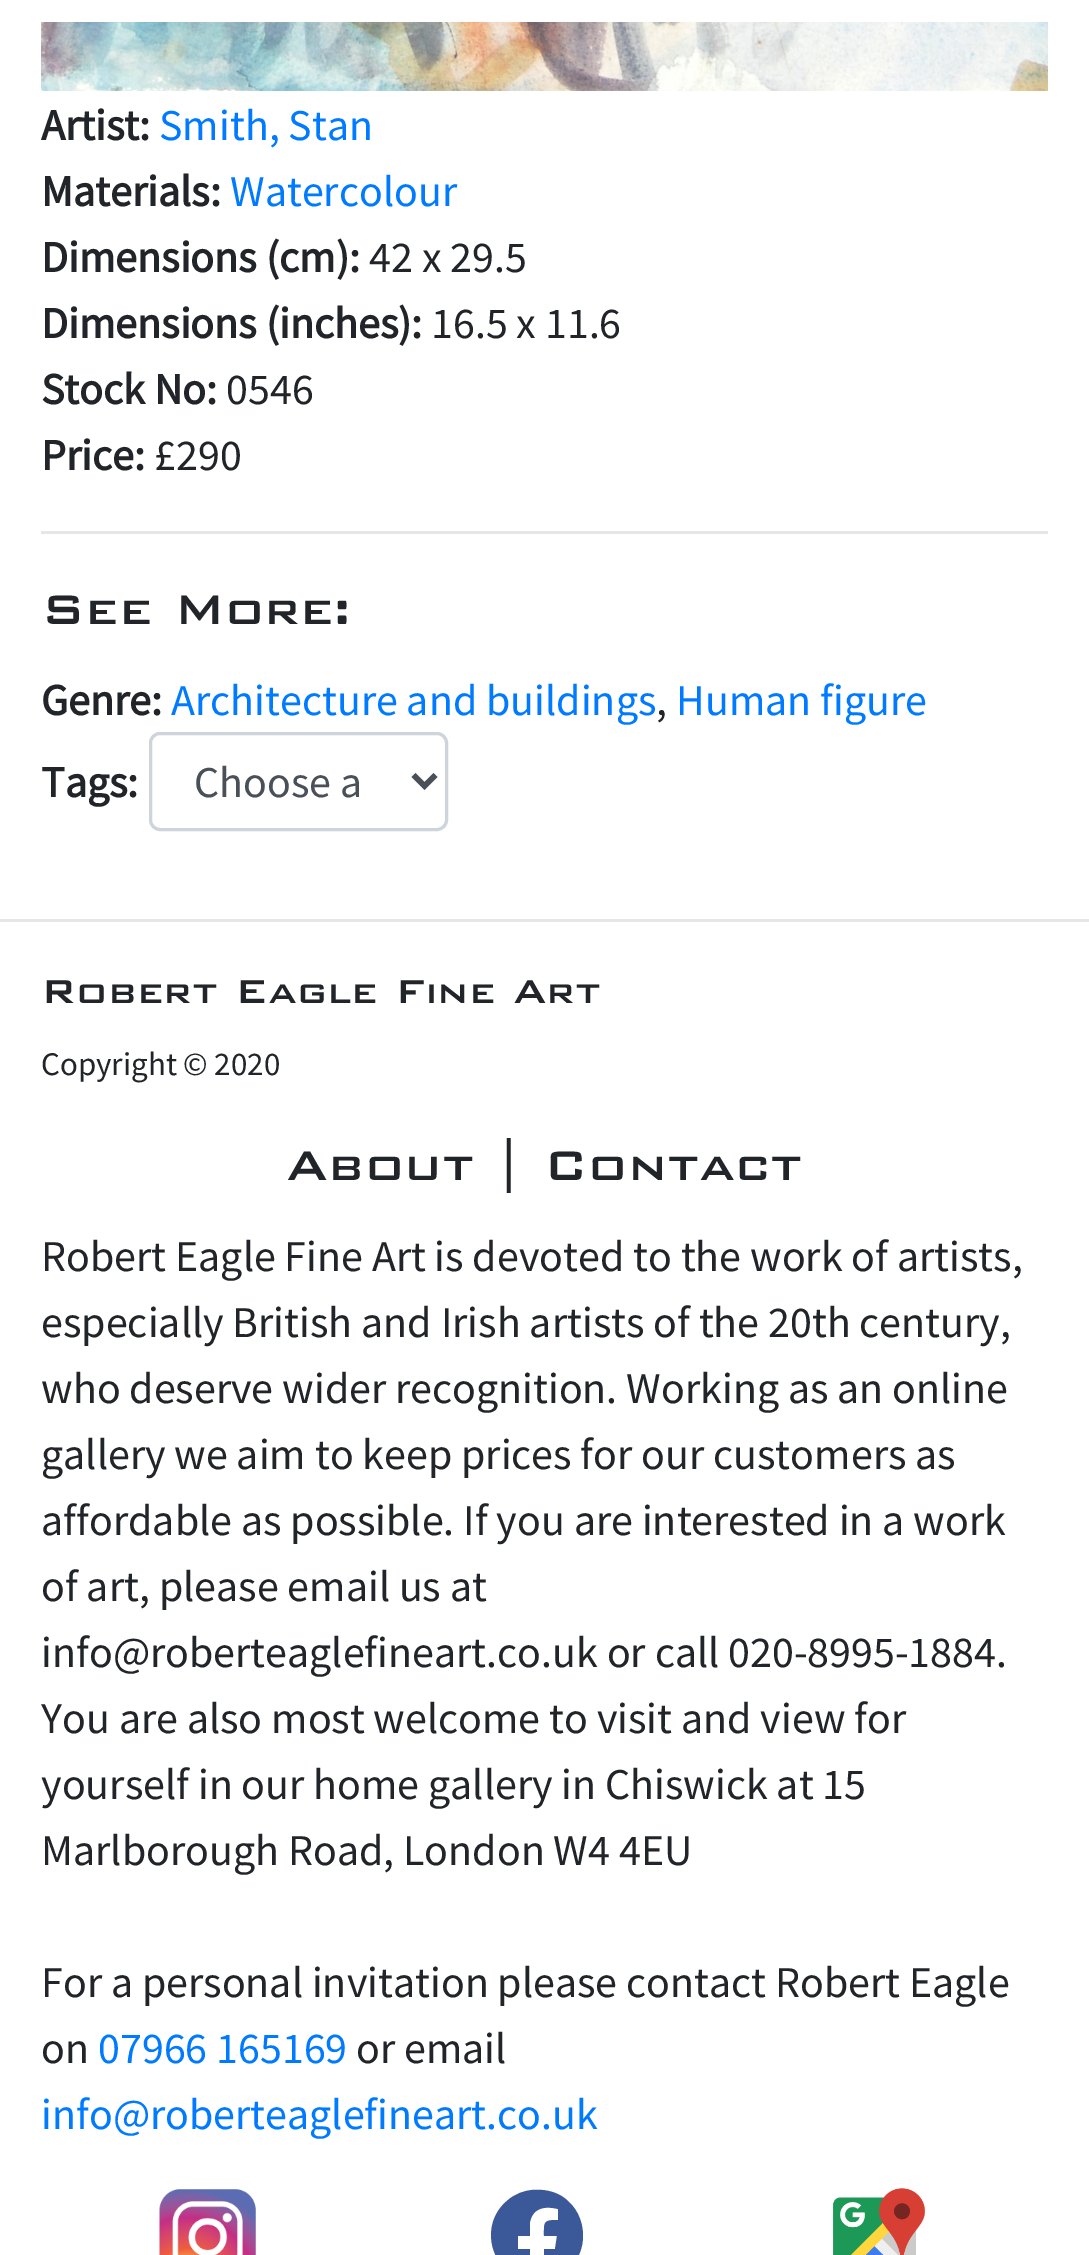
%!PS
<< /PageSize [1089 2255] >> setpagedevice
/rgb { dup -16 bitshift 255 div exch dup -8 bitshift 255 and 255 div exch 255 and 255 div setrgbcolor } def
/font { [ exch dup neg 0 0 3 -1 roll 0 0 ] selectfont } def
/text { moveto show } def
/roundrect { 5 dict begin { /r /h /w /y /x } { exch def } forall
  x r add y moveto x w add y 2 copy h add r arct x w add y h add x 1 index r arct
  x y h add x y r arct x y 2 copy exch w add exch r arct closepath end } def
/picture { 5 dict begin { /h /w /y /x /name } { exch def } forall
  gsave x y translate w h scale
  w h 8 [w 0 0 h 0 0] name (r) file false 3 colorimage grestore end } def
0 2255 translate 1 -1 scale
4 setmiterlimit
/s1 { /SourceSansPro-Bold 44 font 16#212529 rgb } def
/s2 { /SourceSansPro-Regular 44 font 16#007BFF rgb } def
/s3 { /SourceSansPro-Regular 44 font 16#212529 rgb } def
/s4 { /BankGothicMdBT-Medium 55 font 16#212529 rgb } def
/s5 { /SourceSansPro-Regular 44 font 16#495057 rgb } def
/s6 { /BankGothicMdBT-Medium 44 font 16#212529 rgb } def
/s7 { /SourceSansPro-Regular 33 font 16#212529 rgb } def
16#FFFFFF rgb
0 0 1089 2255 rectfill
(pic1.raw) 41 22 1007 69 picture
s1
(Artist:) 41 140 text
s2
(Smith, Stan) 159 140 text
s1
(Materials:) 41 206 text
s2
(Watercolour) 230 206 text
s1
(Dimensions \(cm\):) 41 272 text
s3
(42 x 29.5) 369 272 text
s1
(Dimensions \(inches\):) 41 338 text
s3
(16.5 x 11.6) 431 338 text
s1
(Stock No:) 41 404 text
s3
(0546) 226 404 text
s1
(Price:) 41 470 text
s3
(£290) 154 470 text
16#E6E6E6 rgb
41 531 1007 3 rectfill
s4
(See More:) 41 624 text
s1
(Genre:) 41 715 text
s2
(Architecture and buildings) 171 715 text
s3
(,) 656 715 text
s2
(Human figure) 676 715 text
s1
(Tags:) 41 797 text
16#CED4DA rgb
3 setlinewidth
150.5 733.5 296 96 9.5 roundrect stroke
16#495057 rgb
5.5 setlinewidth
413.5 775 moveto 424.5 786 lineto 435.5 775 lineto stroke
s5
(Choose a) 194 797 text
16#E6E6E6 rgb
0 919 1089 3 rectfill
s6
(Robert Eagle Fine Art) 41 1003 text
s7
(Copyright © 2020) 41 1075 text
s4
(About | Contact) 286 1180 text
s3
(Robert Eagle Fine Art is devoted to the work of artists,) 41 1271 text
(especially British and Irish artists of the 20th century,) 41 1337 text
(who deserve wider recognition. Working as an online) 41 1403 text
(gallery we aim to keep prices for our customers as) 41 1469 text
(affordable as possible. If you are interested in a work) 41 1535 text
(of art, please email us at) 41 1601 text
(info@roberteaglefineart.co.uk or call 020-8995-1884.) 41 1667 text
(You are also most welcome to visit and view for) 41 1733 text
(yourself in our home gallery in Chiswick at 15) 41 1799 text
(Marlborough Road, London W4 4EU) 41 1865 text
(For a personal invitation please contact Robert Eagle) 41 1997 text
(on) 41 2063 text
s2
(07966 165169) 98 2063 text
s3
(or email) 356 2063 text
s2
(info@roberteaglefineart.co.uk) 41 2129 text
(pic2.raw) 159 2189 97 66 picture
16#3B5998 rgb
583 2236 moveto 583 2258 567 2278 544 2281 curveto 544 2249 lineto 555 2249 lineto 557 2236 lineto 544 2236 lineto 544 2222 543 2220 558 2220 curveto 558 2209 lineto 546 2206 533 2207 530 2222 curveto 530 2236 lineto 518 2236 lineto 518 2249 lineto 530 2249 lineto 530 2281 lineto 491 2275 477 2225 508 2200 curveto 515 2194 523 2191 532 2190 curveto 543 2189 554 2191 563 2197 curveto 576 2206 583 2220 583 2236 curveto closepath fill
(pic3.raw) 833 2188 92 67 picture
showpage
